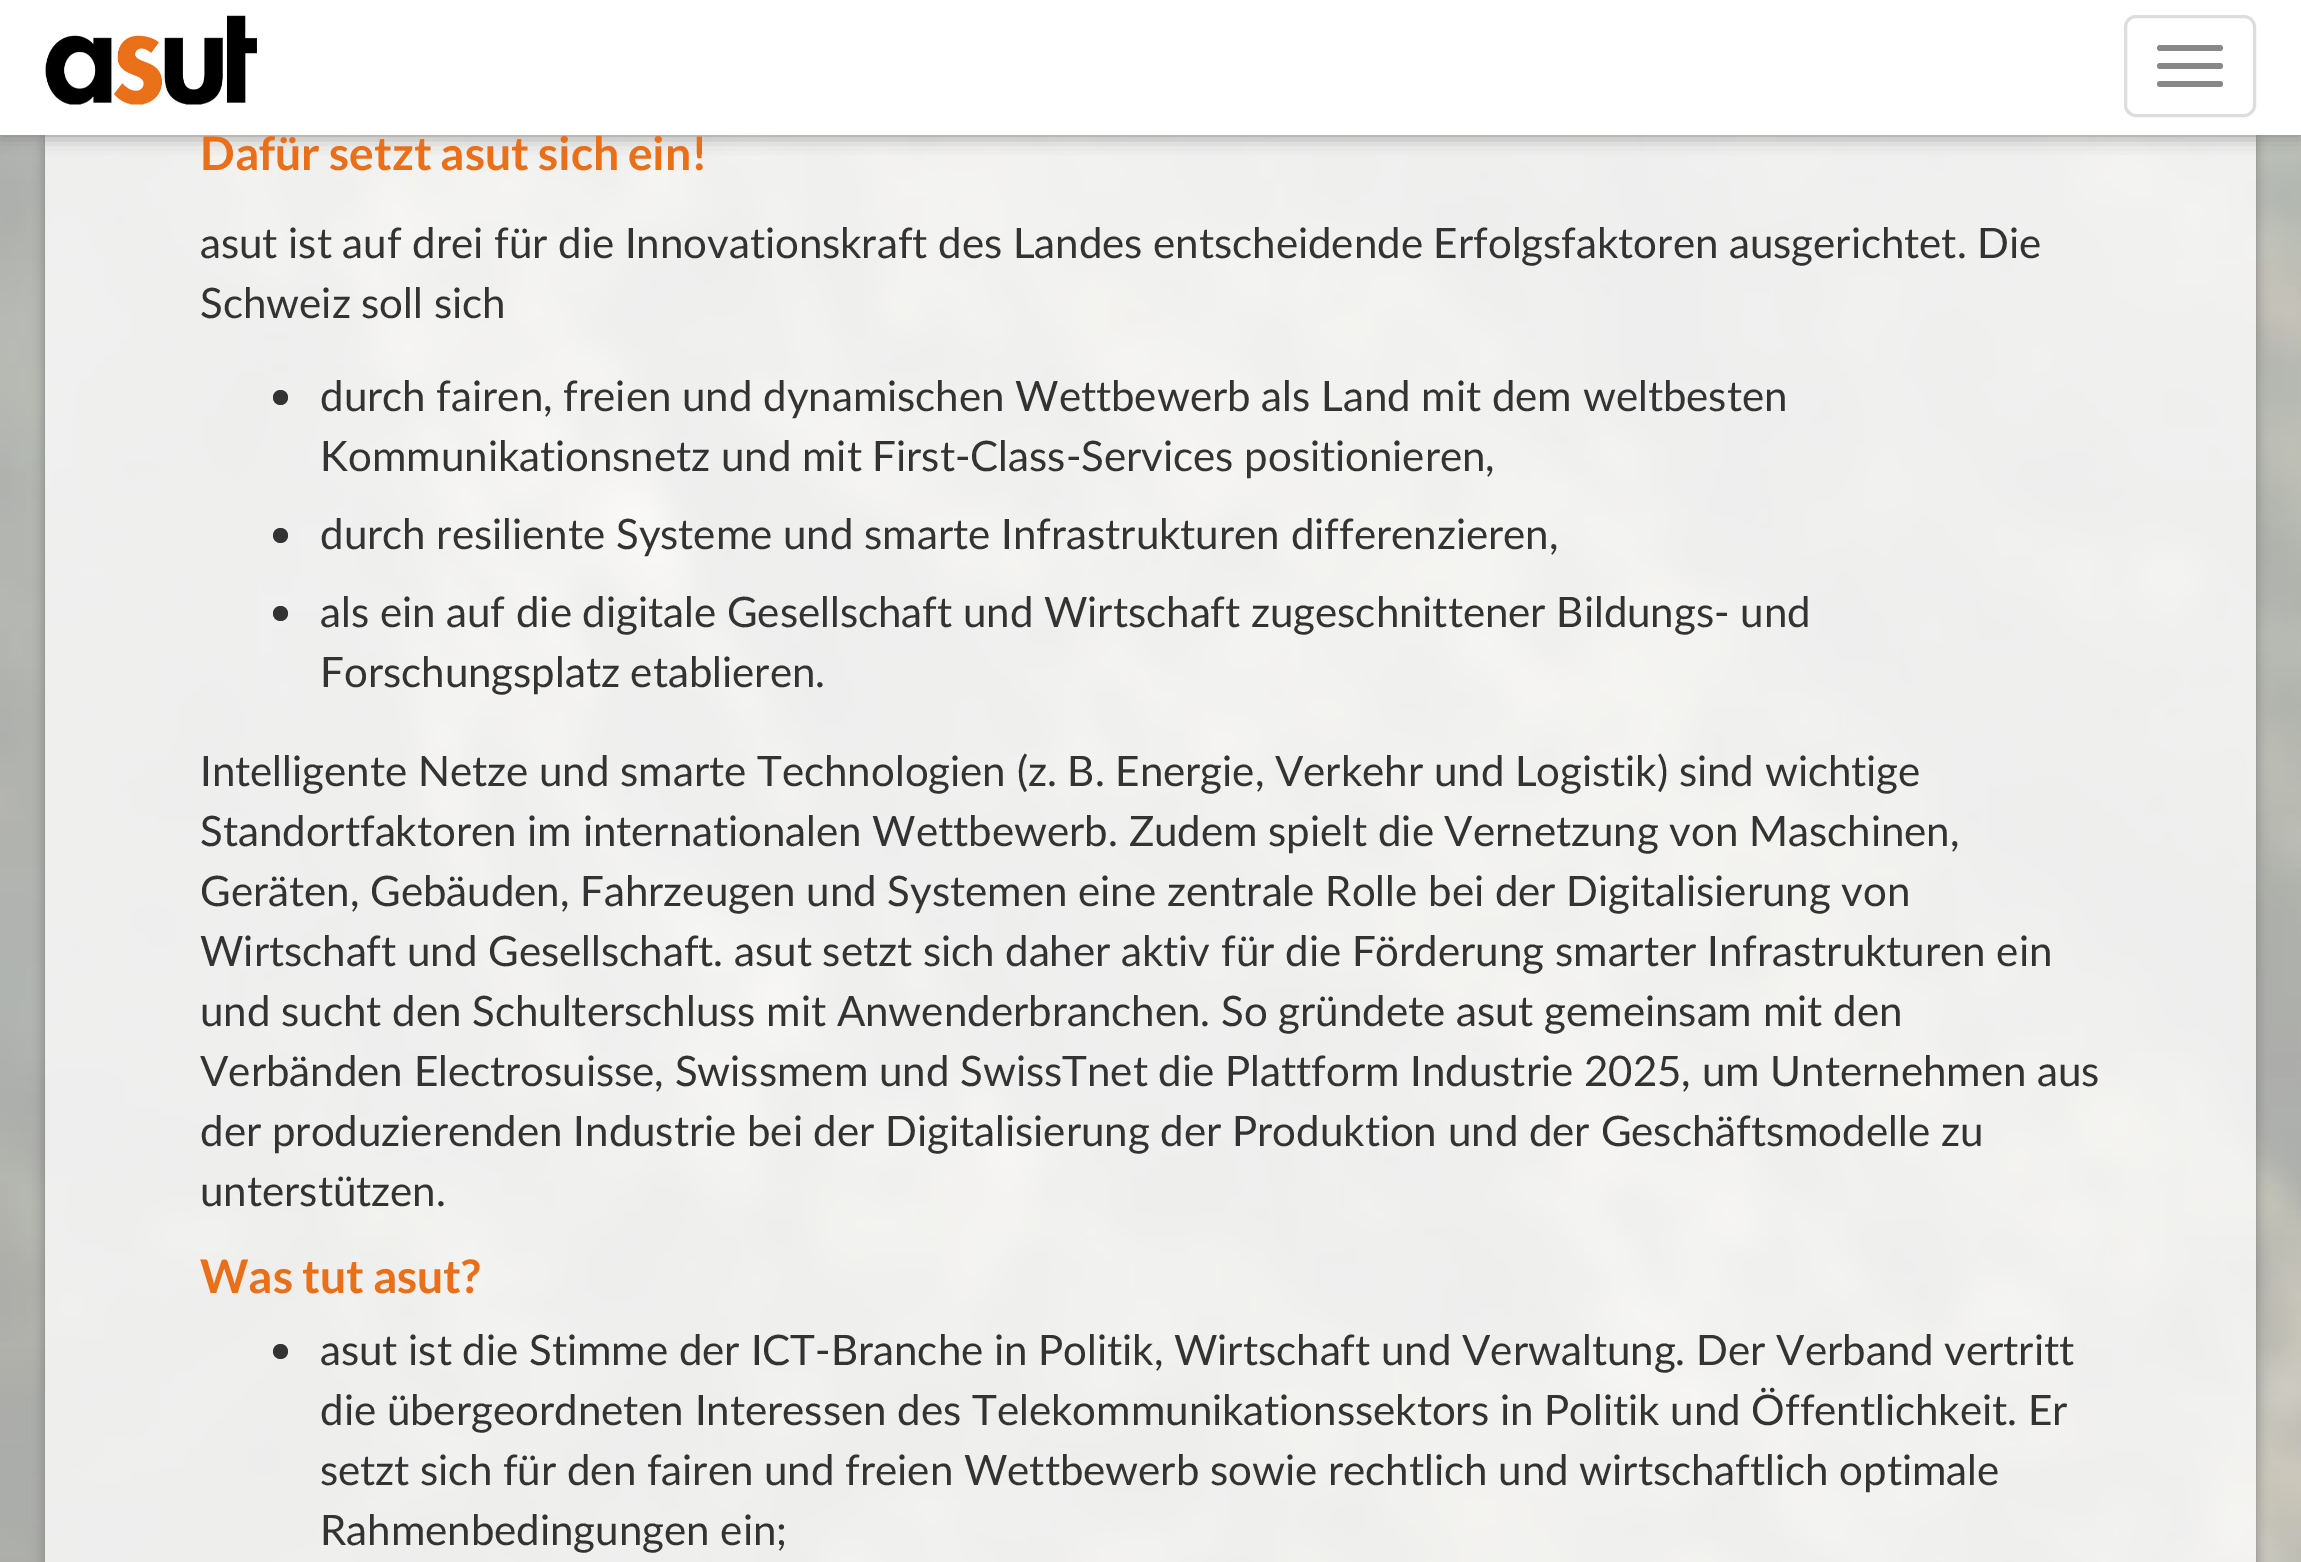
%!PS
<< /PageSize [2301 1562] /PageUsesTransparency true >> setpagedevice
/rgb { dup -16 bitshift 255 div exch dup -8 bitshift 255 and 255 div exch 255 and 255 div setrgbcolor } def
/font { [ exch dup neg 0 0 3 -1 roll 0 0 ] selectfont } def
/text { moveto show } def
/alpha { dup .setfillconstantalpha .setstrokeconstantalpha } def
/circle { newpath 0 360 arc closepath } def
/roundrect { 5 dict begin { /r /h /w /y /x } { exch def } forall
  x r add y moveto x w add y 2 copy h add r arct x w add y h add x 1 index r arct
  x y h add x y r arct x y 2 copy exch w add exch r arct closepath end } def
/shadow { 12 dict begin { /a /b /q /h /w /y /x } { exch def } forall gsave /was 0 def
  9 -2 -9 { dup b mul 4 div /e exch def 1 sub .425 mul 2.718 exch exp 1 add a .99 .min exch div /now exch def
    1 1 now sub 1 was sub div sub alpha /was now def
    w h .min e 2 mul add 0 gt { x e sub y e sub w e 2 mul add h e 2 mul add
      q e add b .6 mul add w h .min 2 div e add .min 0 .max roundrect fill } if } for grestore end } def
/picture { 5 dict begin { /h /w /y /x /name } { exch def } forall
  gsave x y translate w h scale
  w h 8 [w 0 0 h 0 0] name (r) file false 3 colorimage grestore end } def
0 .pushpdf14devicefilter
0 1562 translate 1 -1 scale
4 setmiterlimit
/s1 { /Lato-Bold 46.25 font 16#EA6F19 rgb } def
/s2 { /Lato-Regular 42 font 16#333333 rgb } def
16#FFFFFF rgb
0 0 2301 1562 rectfill
(pic2.raw) 0 135 2301 1427 picture
16#808080 rgb
0 -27 2301 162 0 9 1 shadow
gsave
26 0 moveto 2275 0 lineto 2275 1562 lineto 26 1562 lineto closepath 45 -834 moveto 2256 -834 lineto 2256 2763 lineto 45 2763 lineto closepath eoclip newpath
45 -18 2211 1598 0 6 1 shadow
grestore
16#FFFFFF rgb
0 0 2301 135 rectfill
(pic1.raw) 45 15 212 90 picture
16#DDDDDD rgb
3 setlinewidth
2125.5 16.5 129 99 10.5 roundrect stroke
16#888888 rgb
2157 45 66 6 3 roundrect fill
2157 63 66 6 3 roundrect fill
2157 81 66 6 3 roundrect fill
s1
(Dafür setzt asut sich ein!) 200 170 text
s2
(asut ist auf drei für die Innovationskraft des Landes entscheidende Erfolgsfaktoren ausgerichtet. Die) 200 258 text
(Schweiz soll sich) 200 318 text
280.5 397.5 7.5 circle fill
(durch fairen, freien und dynamischen Wettbewerb als Land mit dem weltbesten) 320 411 text
(Kommunikationsnetz und mit First-Class-Services positionieren,) 320 471 text
280.5 535.5 7.5 circle fill
(durch resiliente Systeme und smarte Infrastrukturen differenzieren,) 320 549 text
280.5 613.5 7.5 circle fill
(als ein auf die digitale Gesellschaft und Wirtschaft zugeschnittener Bildungs- und) 320 627 text
(Forschungsplatz etablieren.) 320 687 text
(Intelligente Netze und smarte Technologien \(z. B. Energie, Verkehr und Logistik\) sind wichtige) 200 786 text
(Standortfaktoren im internationalen Wettbewerb. Zudem spielt die Vernetzung von Maschinen,) 200 846 text
(Geräten, Gebäuden, Fahrzeugen und Systemen eine zentrale Rolle bei der Digitalisierung von) 200 906 text
(Wirtschaft und Gesellschaft. asut setzt sich daher aktiv für die Förderung smarter Infrastrukturen ein) 200 966 text
(und sucht den Schulterschluss mit Anwenderbranchen. So gründete asut gemeinsam mit den) 200 1026 text
(Verbänden Electrosuisse, Swissmem und SwissTnet die Plattform Industrie 2025, um Unternehmen aus) 200 1086 text
(der produzierenden Industrie bei der Digitalisierung der Produktion und der Geschäftsmodelle zu) 200 1146 text
(unterstützen.) 200 1206 text
s1
(Was tut asut?) 200 1293 text
16#333333 rgb
280.5 1351.5 7.5 circle fill
s2
(asut ist die Stimme der ICT-Branche in Politik, Wirtschaft und Verwaltung. Der Verband vertritt) 320 1365 text
(die übergeordneten Interessen des Telekommunikationssektors in Politik und Öffentlichkeit. Er) 320 1425 text
(setzt sich für den fairen und freien Wettbewerb sowie rechtlich und wirtschaftlich optimale) 320 1485 text
(Rahmenbedingungen ein;) 320 1545 text
.poppdf14devicefilter showpage
